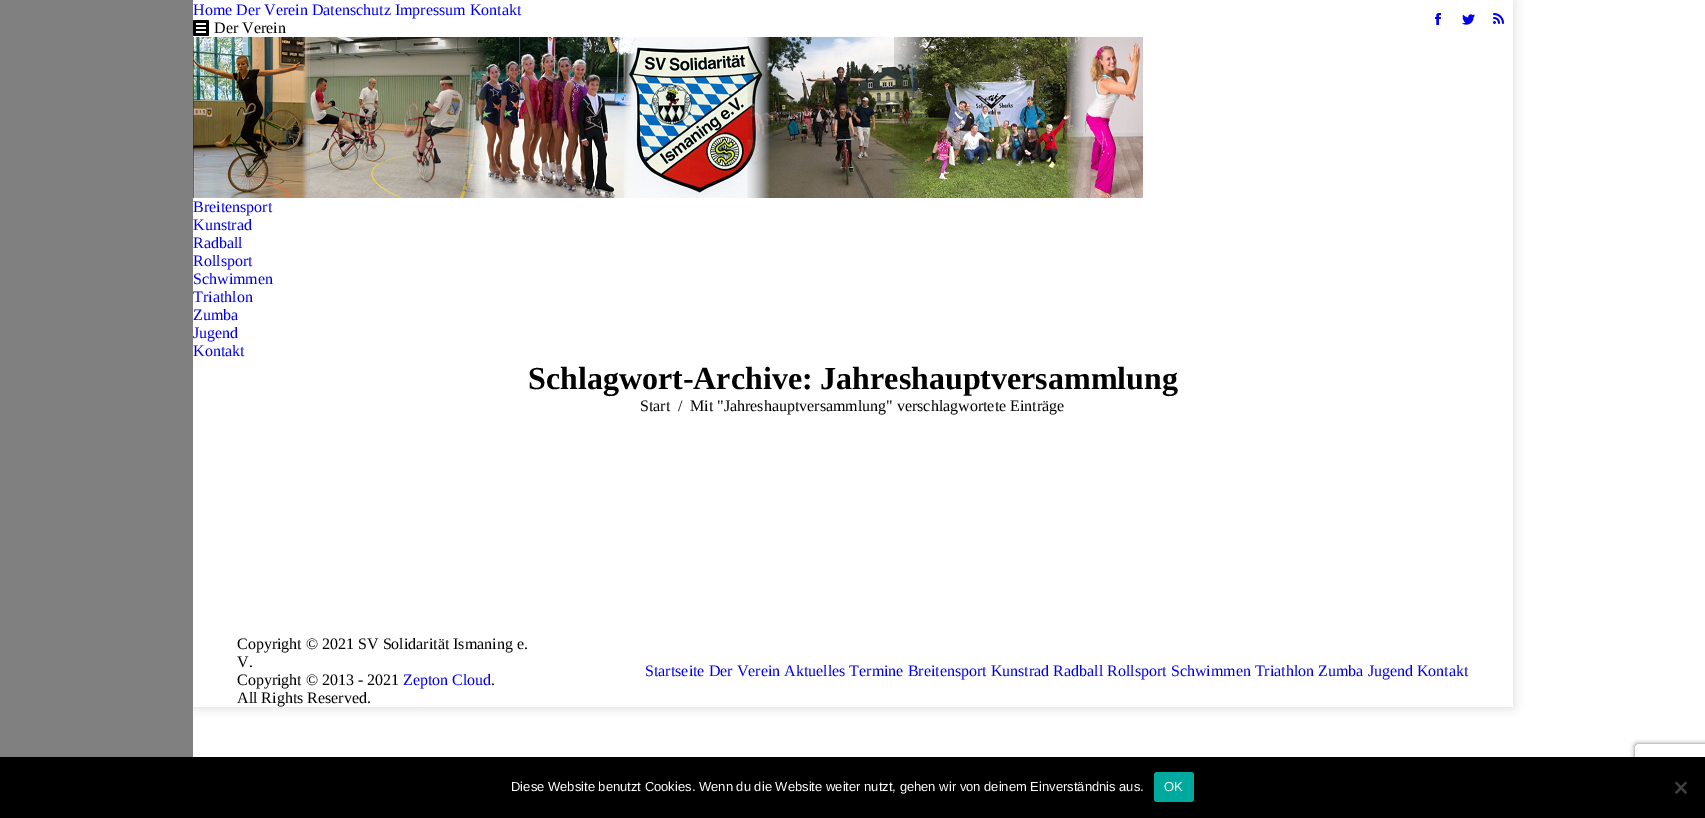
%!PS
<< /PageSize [1705 818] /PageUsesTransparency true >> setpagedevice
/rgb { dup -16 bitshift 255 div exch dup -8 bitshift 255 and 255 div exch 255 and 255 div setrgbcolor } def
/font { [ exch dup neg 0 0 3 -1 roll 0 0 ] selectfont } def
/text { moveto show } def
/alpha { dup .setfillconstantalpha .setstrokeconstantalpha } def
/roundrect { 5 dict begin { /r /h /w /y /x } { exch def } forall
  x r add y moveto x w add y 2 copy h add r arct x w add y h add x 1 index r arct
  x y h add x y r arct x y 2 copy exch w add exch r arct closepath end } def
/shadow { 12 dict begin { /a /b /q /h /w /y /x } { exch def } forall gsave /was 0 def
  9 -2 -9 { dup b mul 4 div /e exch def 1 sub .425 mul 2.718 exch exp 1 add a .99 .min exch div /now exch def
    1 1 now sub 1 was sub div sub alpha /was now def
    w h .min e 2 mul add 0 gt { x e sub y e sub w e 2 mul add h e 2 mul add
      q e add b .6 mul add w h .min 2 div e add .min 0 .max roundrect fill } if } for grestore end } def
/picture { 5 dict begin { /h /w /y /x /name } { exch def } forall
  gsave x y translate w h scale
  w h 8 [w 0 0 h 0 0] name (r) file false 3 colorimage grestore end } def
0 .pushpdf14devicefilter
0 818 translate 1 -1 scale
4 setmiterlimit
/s1 { /LiberationSerif-Regular 16 font 16#0000EE rgb } def
/s2 { /LiberationSerif-Regular 16 font 16#000000 rgb } def
/s3 { /LiberationSerif-Bold 32 font 16#000000 rgb } def
/s4 { /LiberationSans-Regular 13 font 16#FFFFFF rgb } def
16#FFFFFF rgb
0 0 1705 818 rectfill
gsave
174 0 moveto 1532 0 lineto 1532 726 lineto 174 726 lineto closepath 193 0 moveto 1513 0 lineto 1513 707 lineto 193 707 lineto closepath eoclip newpath
16#000000 rgb
193 0 1320 707 0 6 0.15 shadow
grestore
16#808080 rgb
0 0 193 757 rectfill
s1
(Home Der Verein Datenschutz Impressum Kontakt) 193 15 text
(pic1.raw) 193 20 16 16 picture
s2
(Der Verein) 214 33 text
(pic2.raw) 1435 13 6 12 picture
(pic3.raw) 1462 14 13 11 picture
(pic4.raw) 1493 13 11 11 picture
(pic5.raw) 193 37 950 161 picture
s1
(Breitensport) 193 212 text
(Kunstrad) 193 230 text
(Radball) 193 248 text
(Rollsport) 193 266 text
(Schwimmen) 193 284 text
(Triathlon) 193 302 text
(Zumba) 193 320 text
(Jugend) 193 338 text
(Kontakt) 193 356 text
s3
(Schlagwort-Archive: Jahreshauptversammlung) 528 389 text
s2
(Start) 640 411 text
(/) 678 411 text
(Mit "Jahreshauptversammlung" verschlagwortete Einträge) 690 411 text
(Copyright © 2021 SV Solidarität Ismaning e.) 237 649 text
(V.) 237 667 text
(Copyright © 2013 - 2021) 237 685 text
s1
(Zepton Cloud) 403 685 text
s2
(.) 491 685 text
(All Rights Reserved.) 237 703 text
s1
(Startseite Der Verein Aktuelles Termine Breitensport Kunstrad Radball Rollsport Schwimmen Triathlon Zumba Jugend Kontakt) 645 676 text
gsave
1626 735 moveto 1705 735 lineto 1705 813 lineto 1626 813 lineto closepath 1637 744 moveto 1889 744 lineto 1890 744 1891 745 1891 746 curveto 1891 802 lineto 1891 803 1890 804 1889 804 curveto 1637 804 lineto 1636 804 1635 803 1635 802 curveto 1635 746 lineto 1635 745 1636 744 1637 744 curveto closepath eoclip newpath
16#808080 rgb
1635 744 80 60 2 2.5 1 shadow
grestore
16#000000 rgb
0 757 1705 61 rectfill
s4
(Diese Website benutzt Cookies. Wenn du die Website weiter nutzt, gehen wir von deinem Einverständnis aus.) 511 791 text
16#00A99D rgb
1154 772 40 30 3 roundrect fill
s4
(OK) 1164 791 text
16#404040 rgb
1685.5 781.5 moveto 1687 783 lineto 1676.5 794 lineto 1675 792.5 lineto closepath fill
1675 783 moveto 1676.5 781.5 lineto 1687 792.5 lineto 1685.5 794 lineto closepath fill
.poppdf14devicefilter showpage
